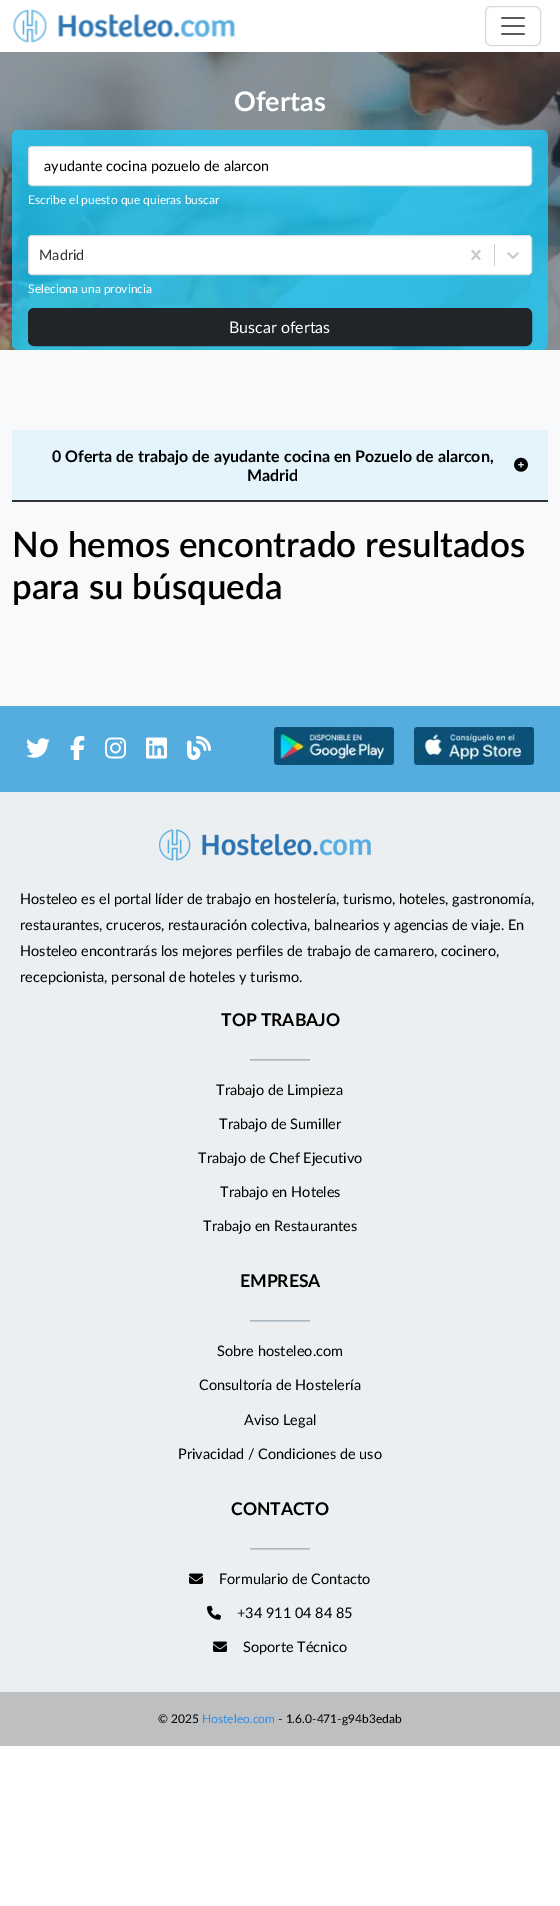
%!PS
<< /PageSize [560 1906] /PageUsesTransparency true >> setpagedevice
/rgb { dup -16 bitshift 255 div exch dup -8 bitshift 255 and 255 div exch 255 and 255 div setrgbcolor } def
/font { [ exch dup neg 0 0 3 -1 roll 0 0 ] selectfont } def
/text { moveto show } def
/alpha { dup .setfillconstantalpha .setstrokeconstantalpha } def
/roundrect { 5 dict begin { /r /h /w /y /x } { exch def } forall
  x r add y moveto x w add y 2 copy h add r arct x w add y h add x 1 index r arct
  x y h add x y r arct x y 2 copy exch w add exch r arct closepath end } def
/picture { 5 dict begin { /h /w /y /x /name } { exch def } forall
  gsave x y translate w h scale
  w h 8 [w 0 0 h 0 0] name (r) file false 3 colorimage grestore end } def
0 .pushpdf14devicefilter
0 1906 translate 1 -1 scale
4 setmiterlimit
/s1 { /Lato-Bold 27 font 16#FFFFFF rgb } def
/s2 { /Lato-Regular 14.4 font 16#000000 rgb } def
/s3 { /Lato-Regular 12 font 16#FFFFFF rgb } def
/s4 { /Lato-Regular 14.4 font 16#333333 rgb } def
/s5 { /Lato-Regular 16 font 16#FFFFFF rgb } def
/s6 { /Lato-Bold 16 font 16#000000 rgb } def
/s7 { /Lato-SemiBold 35 font 16#000000 rgb } def
/s8 { /Lato-Regular 14.5 font 16#000000 rgb } def
/s9 { /Lato-Bold 17.5 font 16#000000 rgb } def
/s10 { /Lato-Regular 12 font 16#000000 rgb } def
/s11 { /Lato-Regular 12 font 16#2F8CE3 rgb } def
16#FFFFFF rgb
0 0 560 1906 rectfill
(pic1.raw) 13 9 223 34 picture
16#D9D9D9 rgb
485.5 6.5 55 39 5.5 roundrect stroke
(pic2.raw) 501 17 24 18 picture
(pic3.raw) 0 52 560 298 picture
s1
(Ofertas) 234 111 text
0.8 alpha
16#1EC8F5 rgb
12 130 536 220 6 roundrect fill
1 alpha
16#FFFFFF rgb
28.5 146.5 503 39 3.5 roundrect gsave fill grestore
16#DDDDDD rgb
stroke
s2
(ayudante cocina pozuelo de alarcon) 44 171 text
s3
(Escribe el puesto que quieras buscar) 28 204 text
28.5 235.5 503 39 3.5 roundrect gsave fill grestore
16#DDDDDD rgb
stroke
s4
(Madrid) 39 260 text
(pic4.raw) 471 249 10 12 picture
16#CCCCCC rgb
494 244 1 22 rectfill
(pic5.raw) 507 252 12 7 picture
s3
(Seleciona una provincia) 28 293 text
16#212529 rgb
28.5 308.5 503 37 5.5 roundrect gsave fill grestore
stroke
s5
(Buscar ofertas) 229 333 text
16#F8F9FA rgb
0 350 560 356 rectfill
16#E4F4FD rgb
12 430 536 70 rectfill
16#333333 rgb
12 500 536 2 rectfill
s6
(0 Oferta de trabajo de ayudante cocina en Pozuelo de alarcon,) 52 462 text
(Madrid) 247 481 text
(pic6.raw) 514 457 14 15 picture
s7
(No hemos encontrado resultados) 12 557 text
(para su búsqueda) 12 599 text
16#ECEFF1 rgb
0 792 560 900 rectfill
16#55ADDF rgb
0 706 560 86 rectfill
(pic7.raw) 26 738 24 20 picture
(pic8.raw) 70 736 15 24 picture
(pic9.raw) 105 737 21 22 picture
(pic10.raw) 146 737 21 22 picture
(pic11.raw) 187 736 24 24 picture
(pic12.raw) 274 727 120 38 picture
(pic13.raw) 414 727 120 38 picture
(pic14.raw) 159 829 212 32 picture
s8
(Hosteleo es el portal líder de trabajo en hostelería, turismo, hoteles, gastronomía,) 20 904 text
(restaurantes, cruceros, restauración colectiva, balnearios y agencias de viaje. En) 20 930 text
(Hosteleo encontrarás los mejores perfiles de trabajo de camarero, cocinero,) 20 956 text
(recepcionista, personal de hoteles y turismo.) 20 982 text
s9
(TOP TRABAJO) 221 1026 text
16#BCD0E2 rgb
250 1060 60 1 rectfill
16#B1B3B5 rgb
250 1059 60 1 rectfill
s8
(Trabajo de Limpieza) 216 1095 text
(Trabajo de Sumiller) 219 1129 text
(Trabajo de Chef Ejecutivo) 198 1163 text
(Trabajo en Hoteles) 220 1197 text
(Trabajo en Restaurantes) 203 1231 text
s9
(EMPRESA) 240 1287 text
16#BCD0E2 rgb
250 1321 60 1 rectfill
16#B1B3B5 rgb
250 1320 60 1 rectfill
s8
(Sobre hosteleo.com) 217 1356 text
(Consultoría de Hostelería) 199 1390 text
(Aviso Legal) 244 1425 text
(Privacidad / Condiciones de uso) 178 1459 text
s9
(CONTACTO) 231 1515 text
16#BCD0E2 rgb
250 1549 60 1 rectfill
16#B1B3B5 rgb
250 1548 60 1 rectfill
(pic15.raw) 189 1573 14 11 picture
s8
(Formulario de Contacto) 219 1584 text
(pic16.raw) 207 1605 14 15 picture
(+34 911 04 84 85) 237 1618 text
(pic15.raw) 213 1641 14 11 picture
(Soporte Técnico) 243 1652 text
16#BDBFC1 rgb
0 1692 560 54 rectfill
s10
(© 2025) 158 1723 text
s11
(Hosteleo.com) 202 1723 text
s10
(- 1.6.0-471-g94b3edab) 278 1723 text
.poppdf14devicefilter showpage
